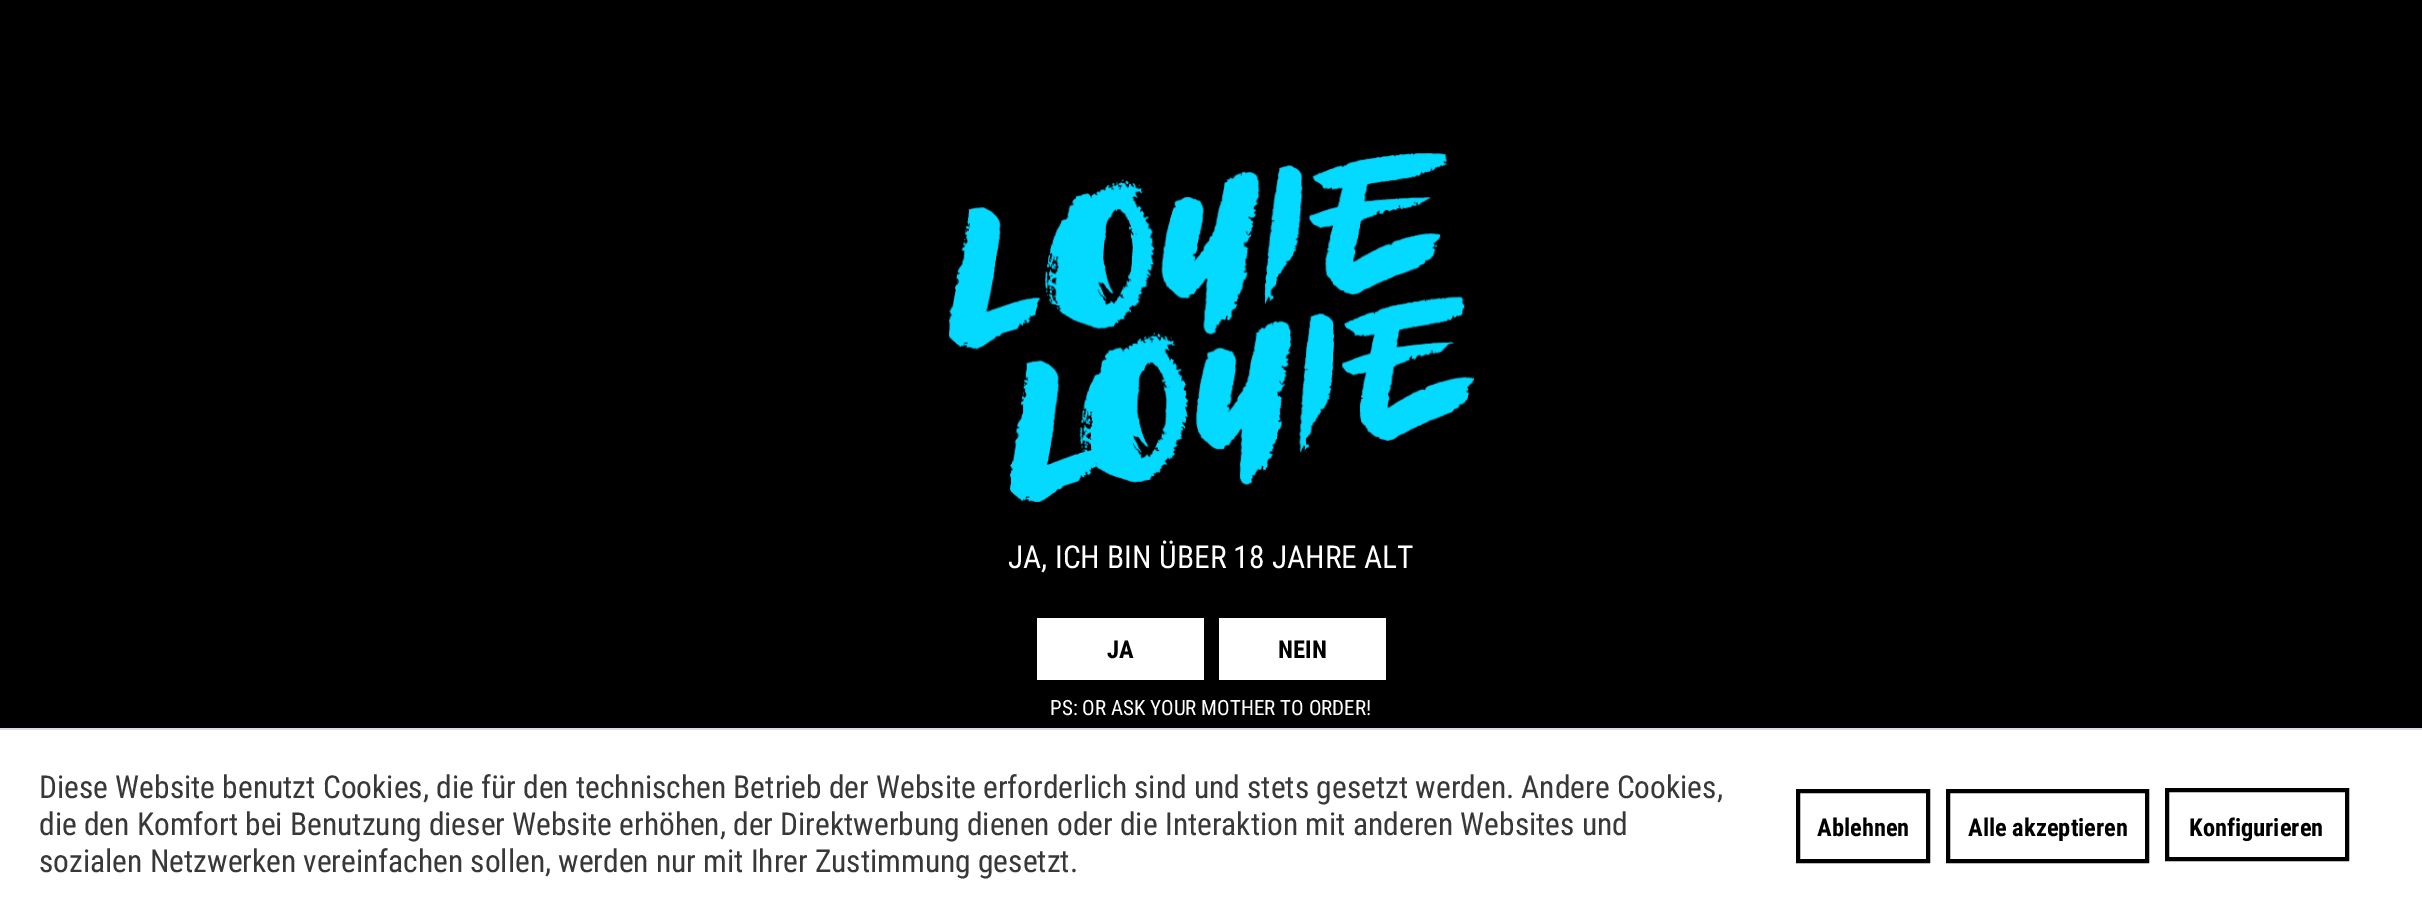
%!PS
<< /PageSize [2422 917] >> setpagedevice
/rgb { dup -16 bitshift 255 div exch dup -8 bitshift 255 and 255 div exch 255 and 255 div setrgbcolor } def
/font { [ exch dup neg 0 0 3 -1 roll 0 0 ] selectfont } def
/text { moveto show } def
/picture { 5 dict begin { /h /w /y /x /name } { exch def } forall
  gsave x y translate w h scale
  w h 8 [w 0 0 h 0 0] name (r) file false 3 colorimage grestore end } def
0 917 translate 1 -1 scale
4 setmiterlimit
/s1 { /RobotoCondensed-Regular 31.5 font 16#FFFFFF rgb } def
/s2 { /RobotoCondensed-Bold 24.5 font 16#000000 rgb } def
/s3 { /RobotoCondensed-Regular 21 font 16#FFFFFF rgb } def
/s4 { /RobotoCondensed-Regular 31.5 font 16#383838 rgb } def
16#000000 rgb
0 0 2422 917 rectfill
(pic1.raw) 949 153 525 349 picture
s1
(JA, ICH BIN ÜBER 18 JAHRE ALT) 1008 568 text
1037 618 167 62 rectfill
s2
(JA) 1107 658 text
16#FFFFFF rgb
1219 618 167 62 rectfill
s2
(NEIN) 1278 658 text
s3
(PS: OR ASK YOUR MOTHER TO ORDER!) 1050 715 text
0 730 2422 187 rectfill
16#DADAE5 rgb
0 728 2422 2 rectfill
s4
(Diese Website benutzt Cookies, die für den technischen Betrieb der Website erforderlich sind und stets gesetzt werden. Andere Cookies,) 39 798 text
(die den Komfort bei Benutzung dieser Website erhöhen, der Direktwerbung dienen oder die Interaktion mit anderen Websites und) 39 835 text
(sozialen Netzwerken vereinfachen sollen, werden nur mit Ihrer Zustimmung gesetzt.) 39 872 text
16#000000 rgb
4 setlinewidth
1798 791 130 70 rectstroke
s2
(Ablehnen) 1817 836 text
1948 791 199 70 rectstroke
(Alle akzeptieren) 1968 836 text
2167 790 180 69 rectstroke
(Konfigurieren) 2189 836 text
showpage
